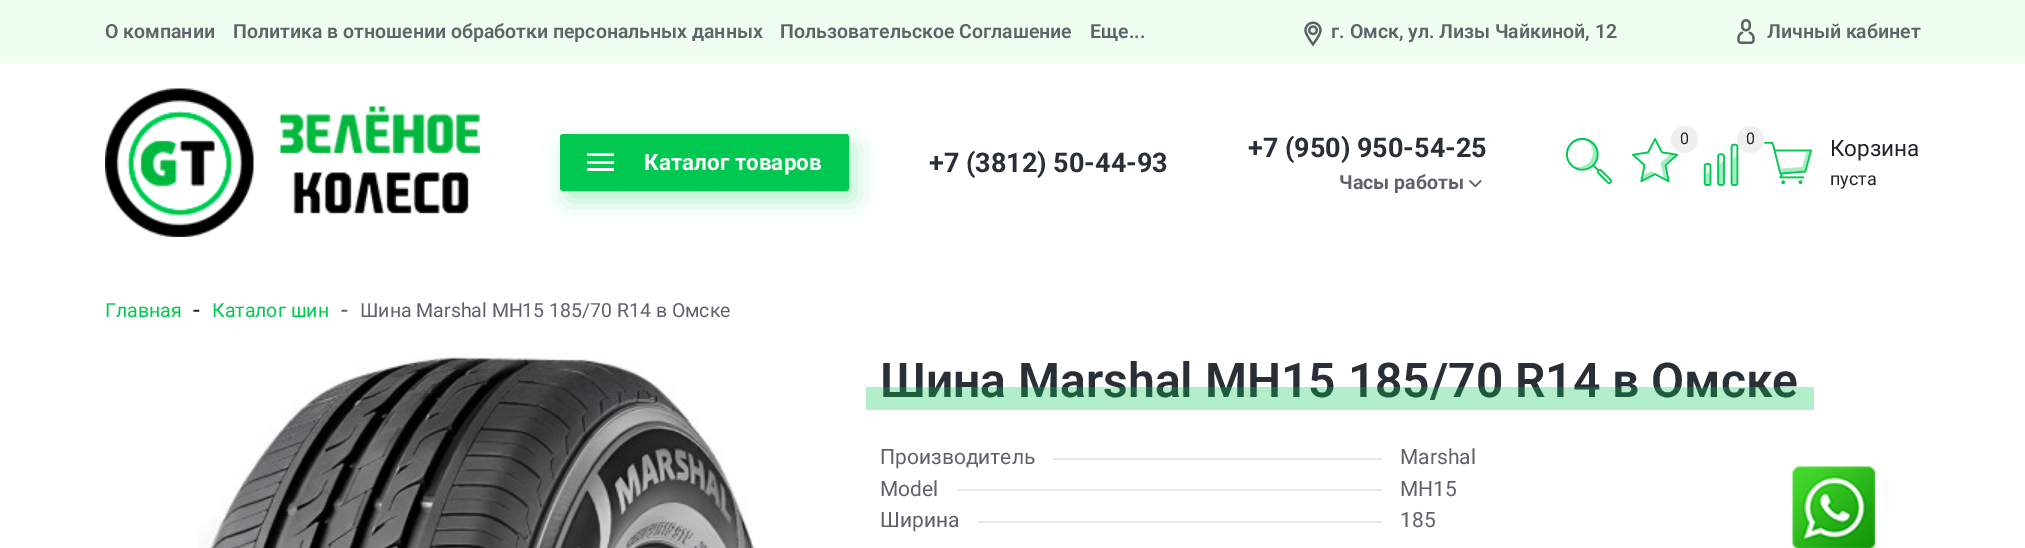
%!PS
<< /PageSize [2025 548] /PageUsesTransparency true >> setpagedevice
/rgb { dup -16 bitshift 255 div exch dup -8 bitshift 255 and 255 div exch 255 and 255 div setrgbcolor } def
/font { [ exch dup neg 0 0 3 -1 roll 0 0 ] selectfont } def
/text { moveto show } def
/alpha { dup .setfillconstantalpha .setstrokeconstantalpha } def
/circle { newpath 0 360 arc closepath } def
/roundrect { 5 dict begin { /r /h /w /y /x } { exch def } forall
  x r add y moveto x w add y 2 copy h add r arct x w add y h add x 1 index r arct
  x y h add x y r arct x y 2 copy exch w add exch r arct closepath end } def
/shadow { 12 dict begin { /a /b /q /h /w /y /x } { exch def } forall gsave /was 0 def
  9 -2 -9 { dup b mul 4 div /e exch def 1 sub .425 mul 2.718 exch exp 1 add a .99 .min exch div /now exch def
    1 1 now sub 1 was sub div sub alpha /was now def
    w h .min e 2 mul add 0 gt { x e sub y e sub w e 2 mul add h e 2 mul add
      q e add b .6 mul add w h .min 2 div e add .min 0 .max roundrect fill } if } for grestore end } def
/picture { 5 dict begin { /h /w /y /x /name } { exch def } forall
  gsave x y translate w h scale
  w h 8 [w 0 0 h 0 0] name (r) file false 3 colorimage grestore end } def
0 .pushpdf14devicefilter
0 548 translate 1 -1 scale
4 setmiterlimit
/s1 { /Roboto-SemiBold 19.5 font 16#5E6369 rgb } def
/s2 { /Roboto-Bold 22.5 font 16#FFFFFF rgb } def
/s3 { /Roboto-Bold 27 font 16#282F37 rgb } def
/s4 { /Roboto-Bold 19.5 font 16#5E6369 rgb } def
/s5 { /Roboto-Regular 16 font 16#212529 rgb } def
/s6 { /Roboto-Regular 22.5 font 16#212529 rgb } def
/s7 { /Roboto-Regular 18 font 16#212529 rgb } def
/s8 { /Roboto-Regular 19.5 font 16#00C851 rgb } def
/s9 { /Roboto-Regular 24 font 16#212529 rgb } def
/s10 { /Roboto-Regular 24 font 16#5E6369 rgb } def
/s11 { /Roboto-Regular 19.5 font 16#5E6369 rgb } def
/s12 { /Roboto-SemiBold 48 font 16#282F37 rgb } def
/s13 { /Roboto-Regular 21 font 16#5E6369 rgb } def
16#FFFFFF rgb
0 0 2025 548 rectfill
16#F0FDF1 rgb
0 0 2025 63 rectfill
s1
(О компании) 105 38 text
(Политика в отношении обработки персональных данных) 233 38 text
(Пользовательское Соглашение) 780 38 text
(Еще...) 1090 38 text
(pic1.raw) 1304 21 18 26 picture
(г. Омск, ул. Лизы Чайкиной, 12) 1331 38 text
(pic2.raw) 1737 19 18 25 picture
(Личный кабинет) 1767 38 text
(pic3.raw) 105 88 375 149 picture
16#00C851 rgb
566 144 289 57 3 12 0.3 shadow
561.5 135.5 286 54 1.5 roundrect gsave fill grestore
3 setlinewidth
stroke
16#FFFFFF rgb
587 153 27 3 rectfill
587 161 27 3 rectfill
587 168 27 3 rectfill
s2
(Каталог товаров) 644 170 text
s3
(+7 \(3812\) 50-44-93) 929 172 text
(+7 \(950\) 950-54-25) 1248 157 text
s4
(Часы работы) 1339 189 text
(pic4.raw) 1469 180 13 8 picture
(pic5.raw) 1566 138 47 47 picture
(pic6.raw) 1632 138 46 45 picture
16#EFEFEF rgb
1684.5 139.5 13.5 circle fill
s5
(0) 1680 144 text
(pic7.raw) 1703 143 36 43 picture
16#EFEFEF rgb
1750.5 139.5 13.5 circle fill
s5
(0) 1746 144 text
(pic8.raw) 1764 141 48 44 picture
s6
(Корзина) 1830 156 text
s7
(пуста) 1830 185 text
s8
(Главная) 105 317 text
s9
(-) 193 318 text
s8
(Каталог шин) 212 317 text
s10
(-) 341 318 text
s11
(Шина Marshal MH15 185/70 R14 в Омске) 360 317 text
(pic9.raw) 197 353 558 195 picture
s12
(Шина Marshal MH15 185/70 R14 в Омске) 880 397 text
0.3 alpha
16#00C851 rgb
866 387 948 23 rectfill
1 alpha
s13
(Производитель) 880 464 text
16#EAEAEB rgb
1053 458 329 2 rectfill
s13
(Marshal) 1400 464 text
(Model) 880 496 text
16#EAEAEB rgb
957 489 425 2 rectfill
s13
(MH15) 1400 496 text
(Ширина) 880 527 text
16#EAEAEB rgb
978 521 404 2 rectfill
s13
(185) 1400 527 text
(pic10.raw) 1792 466 83 82 picture
.poppdf14devicefilter showpage
